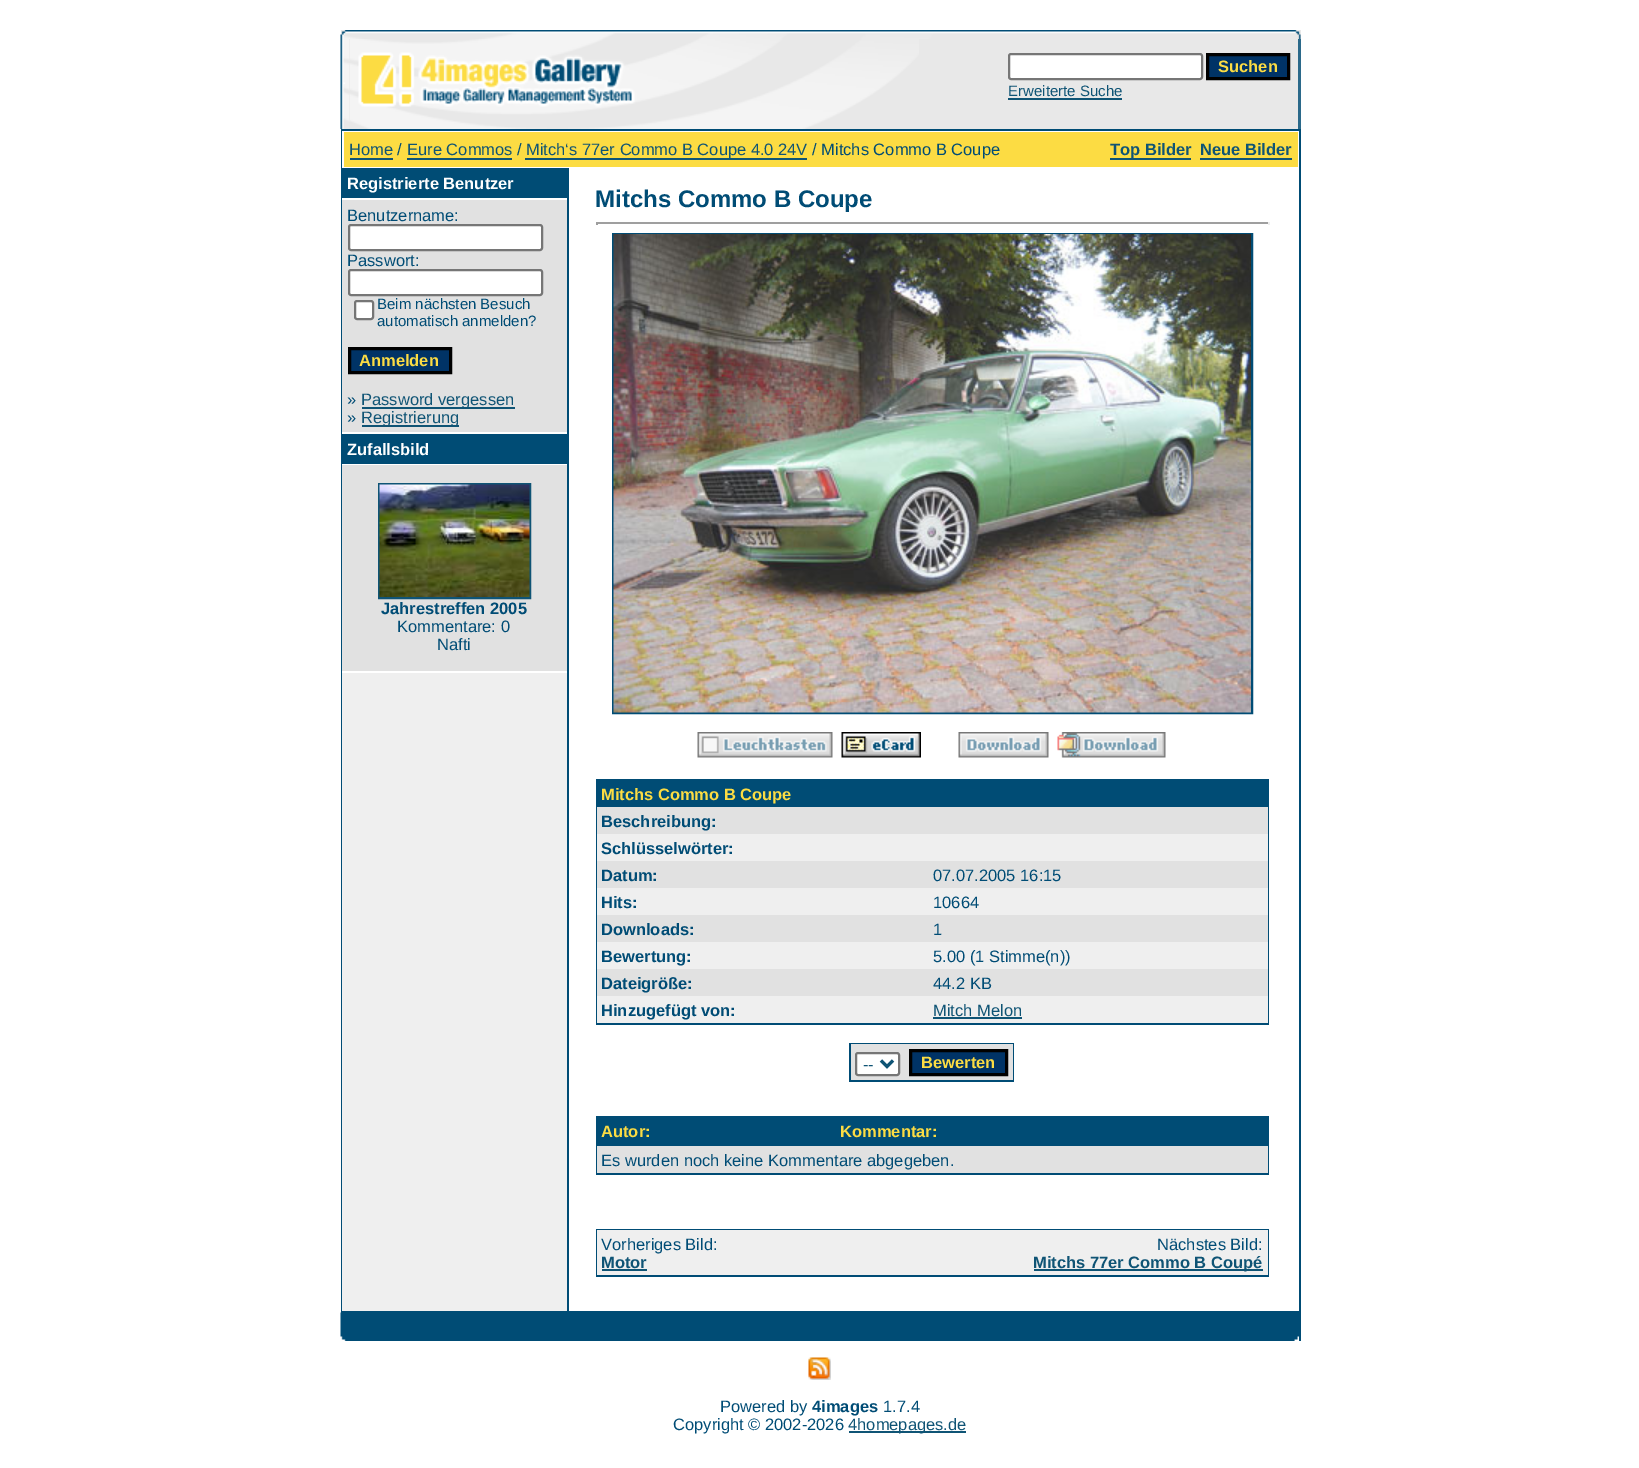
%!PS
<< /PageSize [1639 1468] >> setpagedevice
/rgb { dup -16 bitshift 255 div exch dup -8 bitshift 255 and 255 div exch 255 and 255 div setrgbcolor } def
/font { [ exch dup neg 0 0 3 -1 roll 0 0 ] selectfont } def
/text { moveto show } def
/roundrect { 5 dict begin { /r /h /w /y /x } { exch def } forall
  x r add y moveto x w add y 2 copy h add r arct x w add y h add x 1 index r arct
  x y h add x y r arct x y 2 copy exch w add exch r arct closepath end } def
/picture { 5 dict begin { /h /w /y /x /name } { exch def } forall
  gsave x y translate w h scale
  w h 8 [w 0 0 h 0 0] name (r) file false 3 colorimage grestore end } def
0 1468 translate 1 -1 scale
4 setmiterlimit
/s1 { /LiberationSans-Bold 16.5 font 16#FCDC43 rgb } def
/s2 { /LiberationSans-Regular 15 font 16#0F5475 rgb } def
/s3 { /LiberationSans-Regular 16.5 font 16#0F5475 rgb } def
/s4 { /LiberationSans-Regular 16.5 font 16#004C75 rgb } def
/s5 { /LiberationSans-Bold 16.5 font 16#0F5475 rgb } def
/s6 { /LiberationSans-Bold 16.5 font 16#FFFFFF rgb } def
/s7 { /LiberationSans-Regular 15 font 16#004C75 rgb } def
/s8 { /LiberationSans-Bold 16.5 font 16#004C75 rgb } def
/s9 { /LiberationSans-Bold 24 font 16#004C75 rgb } def
16#FFFFFF rgb
0 0 1639 1468 rectfill
16#E8E8E8 rgb
341 30 960 99 rectfill
(pic1.raw) 340 30 961 9 picture
(pic2.raw) 340 39 10 90 picture
(pic3.raw) 350 39 569 90 picture
16#FFFFFF rgb
1009 54 193 25 2 roundrect gsave fill grestore
16#767676 rgb
2 setlinewidth
stroke
16#003366 rgb
1207.5 54.5 moveto 1288.5 54.5 lineto 1288.5 78.5 lineto 1207.5 78.5 lineto closepath gsave fill grestore
16#000000 rgb
3 setlinewidth
stroke
s1
(Suchen) 1218 72 text
s2
(Erweiterte Suche) 1008 96 text
1008 98 114 2 rectfill
16#2B698A rgb
1298 39 3 90 rectfill
16#004C75 rgb
341 129 960 1184 rectfill
16#FFFFFF rgb
342 131 957 1180 rectfill
16#FCDC43 rgb
344 132 954 35 rectfill
s3
(Home) 349 155 text
350 158 43 2 rectfill
s4
(/) 397 155 text
s3
(Eure Commos) 407 155 text
407 158 105 2 rectfill
s4
(/) 517 155 text
16#0F5475 rgb
525 158 282 2 rectfill
(Mitch‘s 77er Commo B Coupe 4.0 24V) 526 155 text
s4
(/ Mitchs Commo B Coupe) 812 155 text
16#0F5475 rgb
1110 158 81 2 rectfill
s5
(Top Bilder) 1110 155 text
(Neue Bilder) 1200 155 text
1200 158 92 2 rectfill
16#EFEFEF rgb
342 673 225 638 rectfill
16#004C75 rgb
342 168 225 30 rectfill
s6
(Registrierte Benutzer) 347 189 text
16#E1E1E1 rgb
342 200 225 232 rectfill
s4
(Benutzername:) 347 221 text
16#FFFFFF rgb
349 225 193 25 2 roundrect gsave fill grestore
16#767676 rgb
2 setlinewidth
stroke
s4
(Passwort:) 347 266 text
16#FFFFFF rgb
349 270 193 25 2 roundrect gsave fill grestore
16#767676 rgb
stroke
16#FFFFFF rgb
355 301 18 18 2 roundrect gsave fill grestore
16#767676 rgb
stroke
s7
(Beim nächsten Besuch) 377 309 text
(automatisch anmelden?) 377 326 text
16#003366 rgb
349.5 348.5 moveto 450.5 348.5 lineto 450.5 372.5 lineto 349.5 372.5 lineto closepath gsave fill grestore
16#000000 rgb
3 setlinewidth
stroke
s1
(Anmelden) 359 366 text
s4
(») 347 405 text
16#0F5475 rgb
362 407 153 2 rectfill
(Password vergessen) 361 405 text
s4
(») 347 423 text
16#0F5475 rgb
362 425 97 2 rectfill
(Registrierung) 361 423 text
16#004C75 rgb
342 434 225 30 rectfill
s6
(Zufallsbild) 347 455 text
16#E1E1E1 rgb
342 465 225 206 rectfill
16#0F5475 rgb
2 setlinewidth
379 484 151 114 rectstroke
(pic4.raw) 379 484 151 113 picture
s8
(Jahrestreffen 2005) 381 614 text
s4
(Kommentare: 0) 397 632 text
(Nafti) 437 650 text
567 168 2 1143 rectfill
s9
(Mitchs Commo B Coupe) 595 207 text
16#9F9F9F rgb
596 222 673 2 rectfill
16#EEEEEE rgb
1268 222 2 3 rectfill
16#9F9F9F rgb
596 222 2 3 rectfill
16#004C75 rgb
613 234 639 479 rectstroke
(pic5.raw) 613 234 638 479 picture
(pic6.raw) 697 732 136 26 picture
(pic7.raw) 841 732 80 26 picture
(pic8.raw) 958 732 91 26 picture
(pic9.raw) 1057 732 109 26 picture
596 779 673 246 rectfill
s1
(Mitchs Commo B Coupe) 601 800 text
16#E1E1E1 rgb
597 807 671 27 rectfill
s8
(Beschreibung:) 601 827 text
16#EFEFEF rgb
597 834 671 27 rectfill
s8
(Schlüsselwörter:) 601 854 text
16#E1E1E1 rgb
597 861 671 27 rectfill
s8
(Datum:) 601 881 text
s4
(07.07.2005 16:15) 933 881 text
16#EFEFEF rgb
597 888 671 27 rectfill
s8
(Hits:) 601 908 text
s4
(10664) 933 908 text
16#E1E1E1 rgb
597 915 671 27 rectfill
s8
(Downloads:) 601 935 text
s4
(1) 933 935 text
16#EFEFEF rgb
597 942 671 27 rectfill
s8
(Bewertung:) 601 962 text
s4
(5.00 \(1 Stimme\(n\)\)) 933 962 text
16#E1E1E1 rgb
597 969 671 27 rectfill
s8
(Dateigröße:) 601 989 text
s4
(44.2 KB) 933 989 text
16#EFEFEF rgb
597 996 671 27 rectfill
s8
(Hinzugefügt von:) 601 1016 text
s3
(Mitch Melon) 933 1016 text
933 1017 89 2 rectfill
16#004C75 rgb
849 1043 165 39 rectfill
16#E1E1E1 rgb
851 1044 162 36 rectfill
16#FFFFFF rgb
856 1053 43 22 2 roundrect gsave fill grestore
16#767676 rgb
stroke
16#0F5475 rgb
3 setlinewidth
881 1060.5 moveto 887 1066.5 lineto 893 1060.5 lineto stroke
(--) 863 1070 text
16#003366 rgb
910.5 1050.5 moveto 1006.5 1050.5 lineto 1006.5 1074.5 lineto 910.5 1074.5 lineto closepath gsave fill grestore
16#000000 rgb
stroke
s1
(Bewerten) 921 1068 text
16#004C75 rgb
596 1116 673 59 rectfill
s1
(Autor:) 601 1137 text
(Kommentar:) 840 1137 text
16#E1E1E1 rgb
597 1146 671 27 rectfill
s4
(Es wurden noch keine Kommentare abgegeben.) 601 1166 text
596 1229 673 48 rectfill
16#EFEFEF rgb
597 1230 671 45 rectfill
s4
(Vorheriges Bild:) 601 1250 text
s5
(Motor) 601 1268 text
602 1269 45 2 rectfill
s4
(Nächstes Bild:) 1157 1250 text
16#0F5475 rgb
1034 1269 229 2 rectfill
s5
(Mitchs 77er Commo B Coupé) 1033 1268 text
16#004C75 rgb
346 1313 955 28 rectfill
(pic10.raw) 340 1312 6 29 picture
(pic11.raw) 1294 1336 5 5 picture
(pic12.raw) 808 1357 23 23 picture
s4
(Powered by) 720 1412 text
s8
(4images) 812 1412 text
s4
(1.7.4) 883 1412 text
(Copyright © 2002-2026) 673 1430 text
16#0F5475 rgb
849 1431 117 2 rectfill
(4homepages.de) 848 1430 text
showpage
